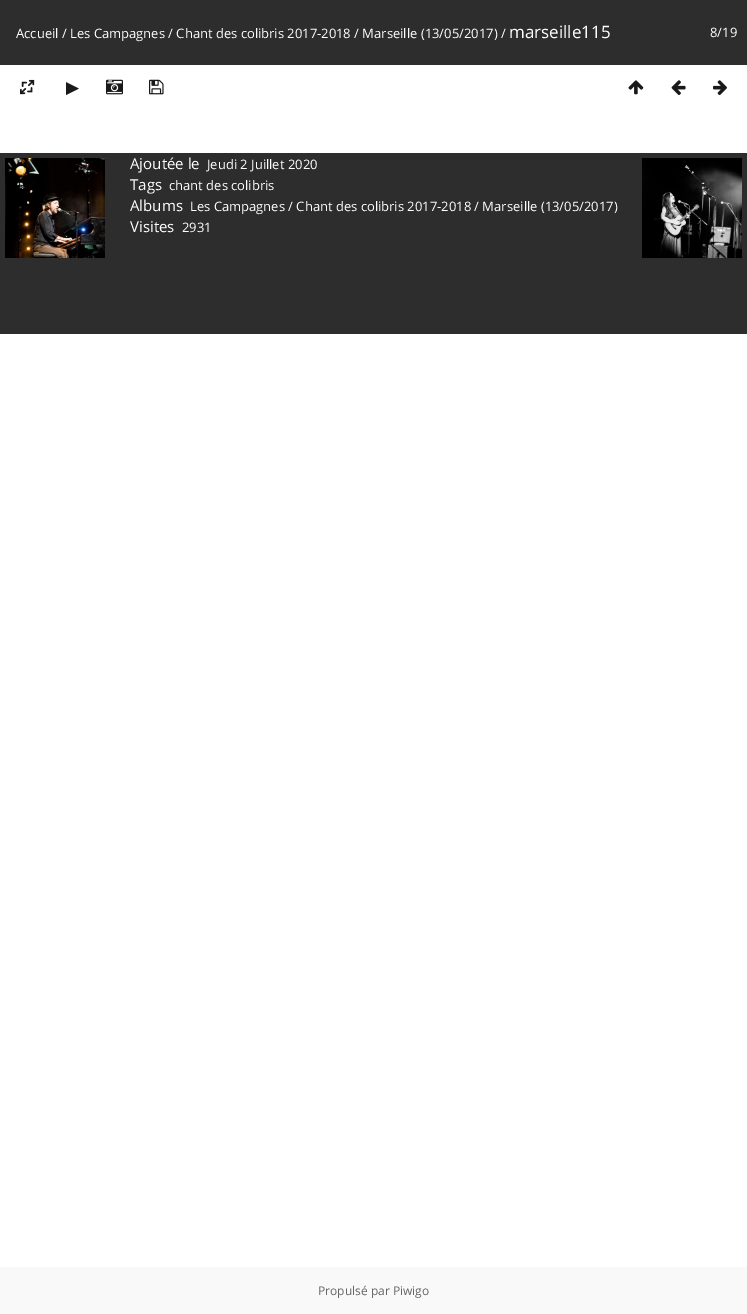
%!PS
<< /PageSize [747 1314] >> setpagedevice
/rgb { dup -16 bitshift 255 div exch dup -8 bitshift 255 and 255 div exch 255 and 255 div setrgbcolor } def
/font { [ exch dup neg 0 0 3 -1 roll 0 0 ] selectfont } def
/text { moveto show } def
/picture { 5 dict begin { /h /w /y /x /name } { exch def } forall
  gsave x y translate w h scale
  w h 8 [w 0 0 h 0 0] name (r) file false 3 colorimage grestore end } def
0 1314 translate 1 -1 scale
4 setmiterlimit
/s1 { /OpenSans-Regular 13 font 16#FFFFFF rgb } def
/s2 { /OpenSans-Regular 17 font 16#FFFFFF rgb } def
/s3 { /DejaVuSans-Regular 17 font 16#1A1A1A rgb } def
/s4 { /OpenSans-Regular 15 font 16#FFFFFF rgb } def
/s5 { /OpenSans-Regular 12 font 16#666666 rgb } def
16#FFFFFF rgb
0 0 747 1314 rectfill
16#2D2D2D rgb
0 0 747 65 rectfill
s1
(Accueil / Les Campagnes / Chant des colibris 2017-2018 / Marseille \(13/05/2017\) /) 16 38 text
s2
(marseille115) 509 38 text
s1
(8/19) 710 37 text
(pic1.raw) 20 79 15 16 picture
s3
(▶) 66 93 text
(pic2.raw) 106 79 17 16 picture
(pic3.raw) 149 79 15 16 picture
(pic4.raw) 628 80 16 15 picture
(pic5.raw) 671 80 15 15 picture
(pic6.raw) 713 80 14 15 picture
16#2D2D2D rgb
0 153 747 181 rectfill
s4
(Ajoutée le) 130 169 text
s1
(Jeudi 2 Juillet 2020) 207 169 text
s4
(Tags) 130 190 text
s1
(chant des colibris) 169 190 text
s4
(Albums) 130 211 text
s1
(Les Campagnes / Chant des colibris 2017-2018 / Marseille \(13/05/2017\)) 190 211 text
s4
(Visites) 130 232 text
s1
(2931) 182 232 text
(pic7.raw) 5 158 100 100 picture
(pic8.raw) 642 158 100 100 picture
16#F9F9F9 rgb
0 1267 747 47 rectfill
s5
(Propulsé par Piwigo) 318 1295 text
showpage
